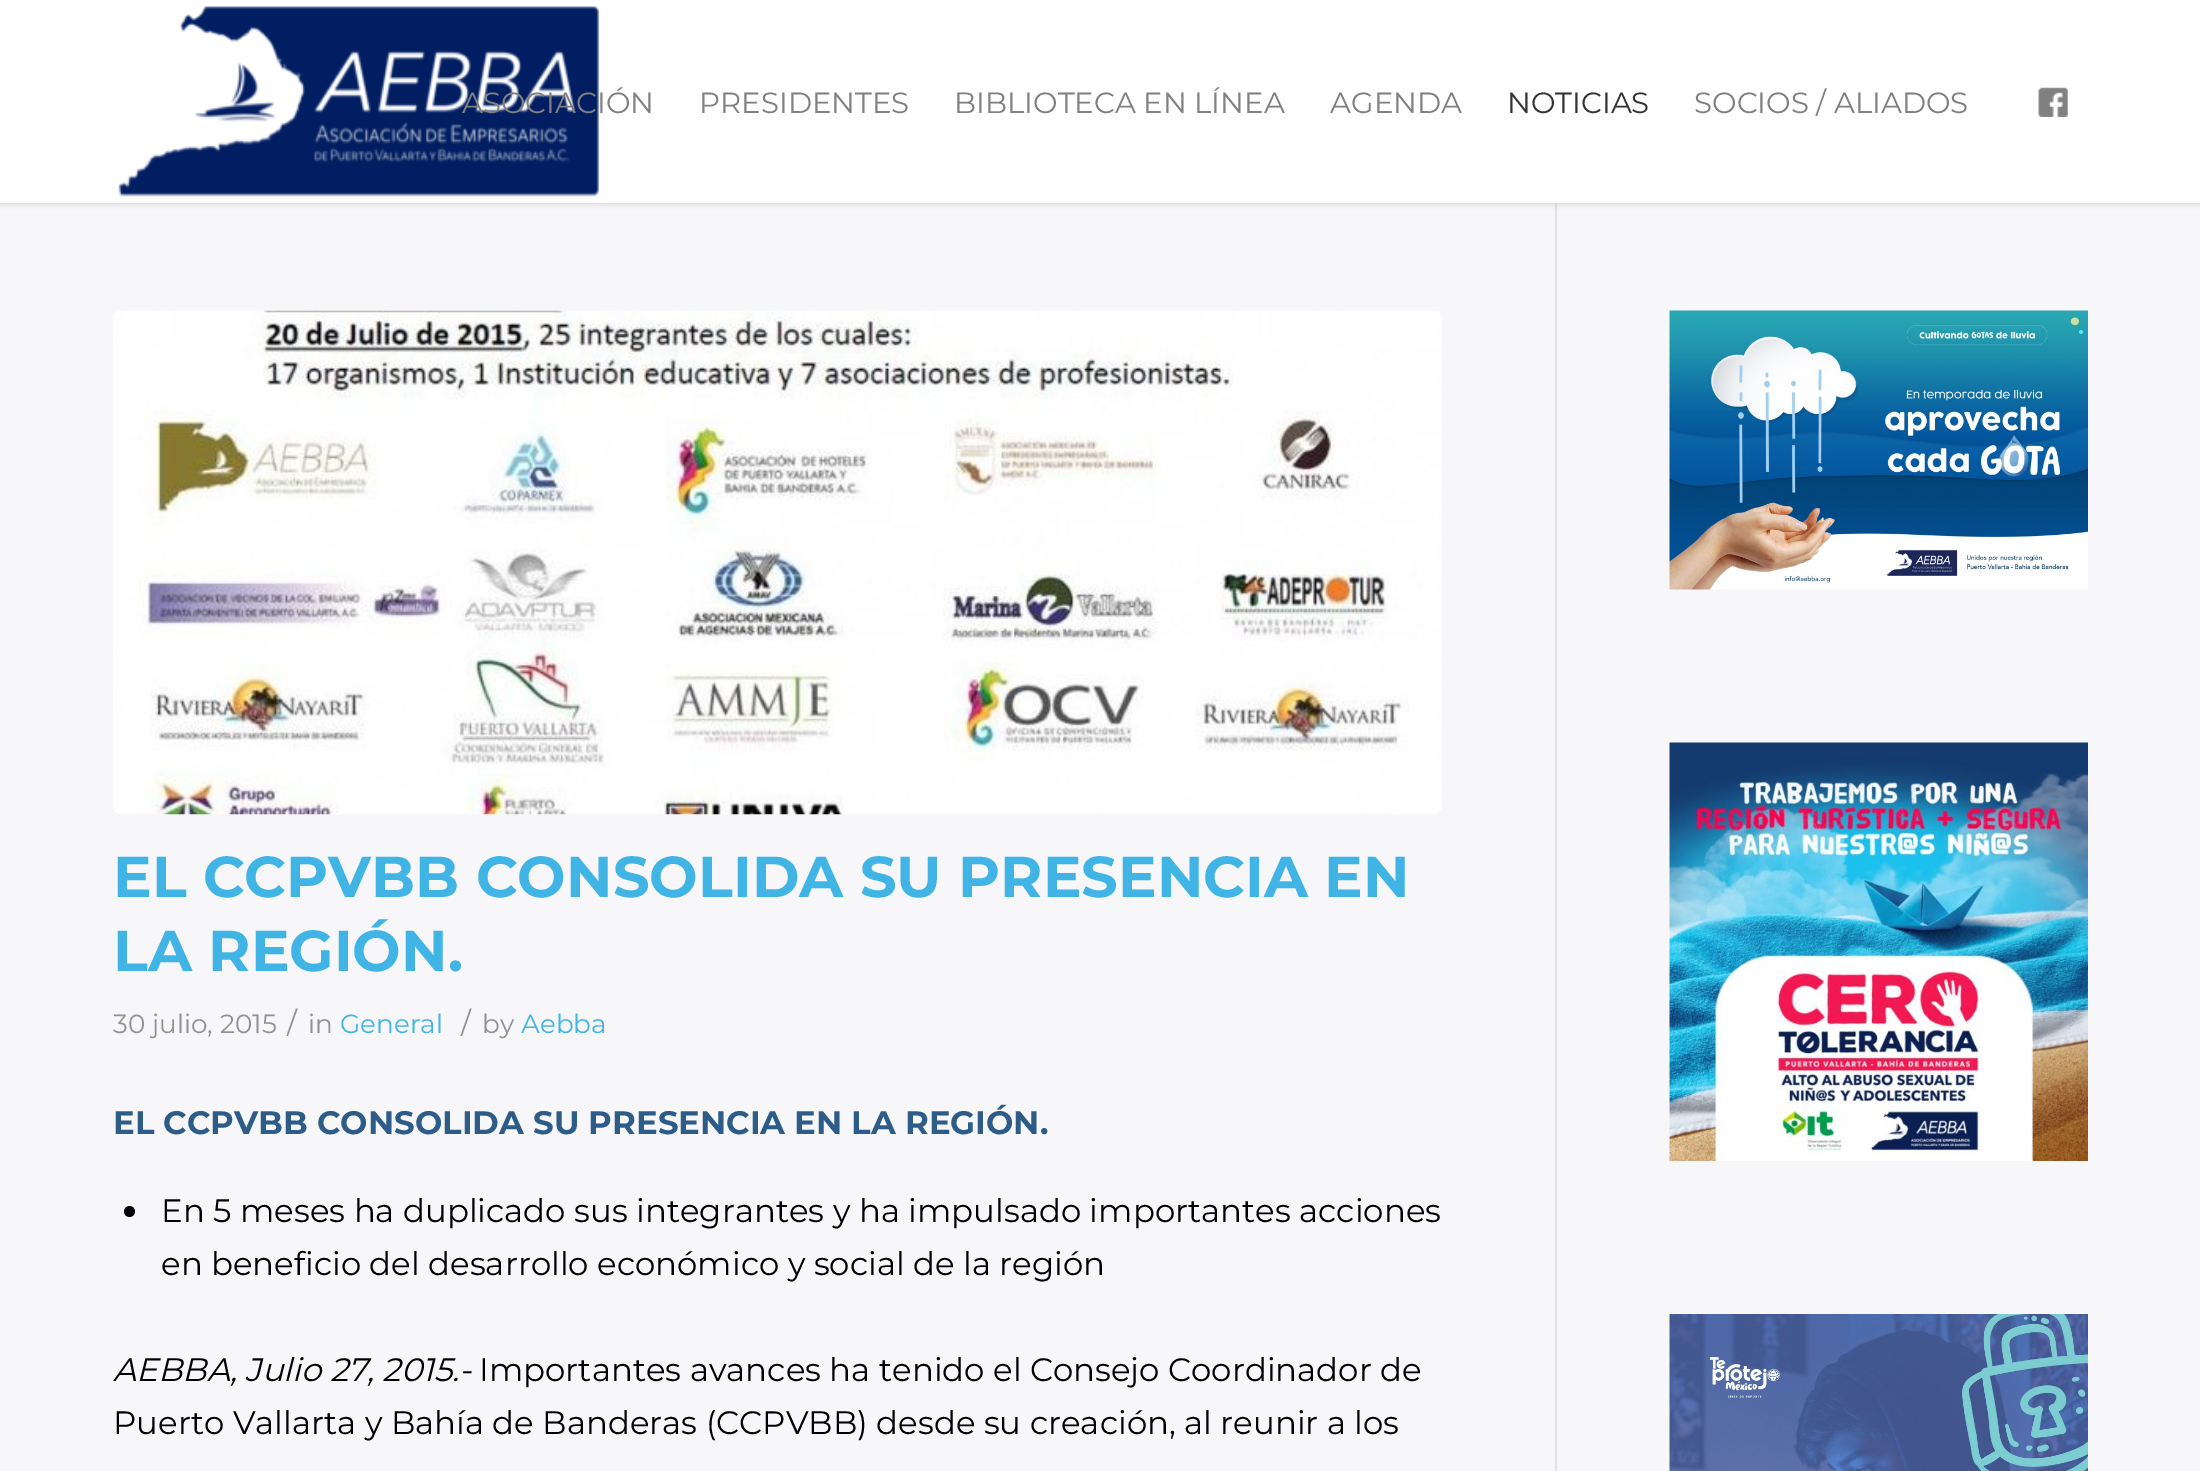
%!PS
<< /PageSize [2200 1471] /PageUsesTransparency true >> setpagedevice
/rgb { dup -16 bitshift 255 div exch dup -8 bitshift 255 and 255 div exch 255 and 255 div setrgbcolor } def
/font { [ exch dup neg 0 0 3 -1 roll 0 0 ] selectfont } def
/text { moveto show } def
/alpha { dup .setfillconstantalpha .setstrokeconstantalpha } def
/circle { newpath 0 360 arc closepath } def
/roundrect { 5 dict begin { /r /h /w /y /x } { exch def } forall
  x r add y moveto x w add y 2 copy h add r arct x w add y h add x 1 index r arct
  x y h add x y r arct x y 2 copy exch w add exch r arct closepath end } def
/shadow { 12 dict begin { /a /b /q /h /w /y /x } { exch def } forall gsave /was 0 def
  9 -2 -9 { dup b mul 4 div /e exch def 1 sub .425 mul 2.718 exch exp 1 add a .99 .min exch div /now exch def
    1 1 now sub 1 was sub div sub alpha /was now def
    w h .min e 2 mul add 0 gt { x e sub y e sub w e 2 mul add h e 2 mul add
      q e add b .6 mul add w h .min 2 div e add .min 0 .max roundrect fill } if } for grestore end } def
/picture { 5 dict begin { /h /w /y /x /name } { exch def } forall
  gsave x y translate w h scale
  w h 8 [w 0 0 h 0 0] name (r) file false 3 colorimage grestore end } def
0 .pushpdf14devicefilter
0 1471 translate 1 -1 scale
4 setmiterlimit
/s1 { /Montserrat-Regular 29.25 font 16#808080 rgb } def
/s2 { /Montserrat-Regular 29.25 font 16#333333 rgb } def
/s3 { /Montserrat-Bold 57.6 font 16#40B4E5 rgb } def
/s4 { /Montserrat-Regular 26.25 font 16#919191 rgb } def
/s5 { /Montserrat-Regular 29 font 16#919191 rgb } def
/s6 { /Montserrat-Regular 26.25 font 16#40B4E5 rgb } def
/s7 { /Montserrat-Bold 32.4 font 16#2D5C88 rgb } def
/s8 { /Montserrat-Regular 32.4 font 16#000000 rgb } def
/s9 { /Montserrat-Italic 32.4 font 16#000000 rgb } def
16#F7F7F9 rgb
0 0 2200 1471 rectfill
16#E1E1E1 rgb
1555 198 2 1273 rectfill
16#000000 rgb
-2 -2 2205 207 0 2 0.1 shadow
16#FFFFFF rgb
0 0 2200 203 rectfill
(pic1.raw) 118 6 482 191 picture
s1
(ASOCIACIÓN) 462 113 text
(PRESIDENTES) 699 113 text
(BIBLIOTECA EN LÍNEA) 954 113 text
(AGENDA) 1330 113 text
s2
(NOTICIAS) 1507 113 text
s1
(SOCIOS / ALIADOS) 1694 113 text
(pic2.raw) 2038 87 30 30 picture
(pic3.raw) 113 310 1329 505 picture
s3
(EL CCPVBB CONSOLIDA SU PRESENCIA EN) 113 897 text
(LA REGIÓN.) 113 971 text
s4
(30 julio, 2015) 113 1033 text
s5
(/) 287 1033 text
s4
(in) 308 1033 text
s6
(General) 340 1033 text
s5
(/) 461 1033 text
s4
(by) 482 1033 text
s6
(Aebba) 521 1033 text
s7
(EL CCPVBB CONSOLIDA SU PRESENCIA EN LA REGIÓN.) 113 1134 text
16#000000 rgb
129.5 1211.5 5.5 circle fill
s8
(En 5 meses ha duplicado sus integrantes y ha impulsado importantes acciones) 161 1222 text
(en beneficio del desarrollo económico y social de la región) 161 1275 text
s9
(AEBBA, Julio 27, 2015.-) 113 1381 text
s8
(Importantes avances ha tenido el Consejo Coordinador de) 479 1381 text
(Puerto Vallarta y Bahía de Banderas \(CCPVBB\) desde su creación, al reunir a los) 113 1434 text
(pic4.raw) 1669 310 419 280 picture
(pic5.raw) 1669 742 419 419 picture
(pic6.raw) 1669 1314 419 157 picture
.poppdf14devicefilter showpage
